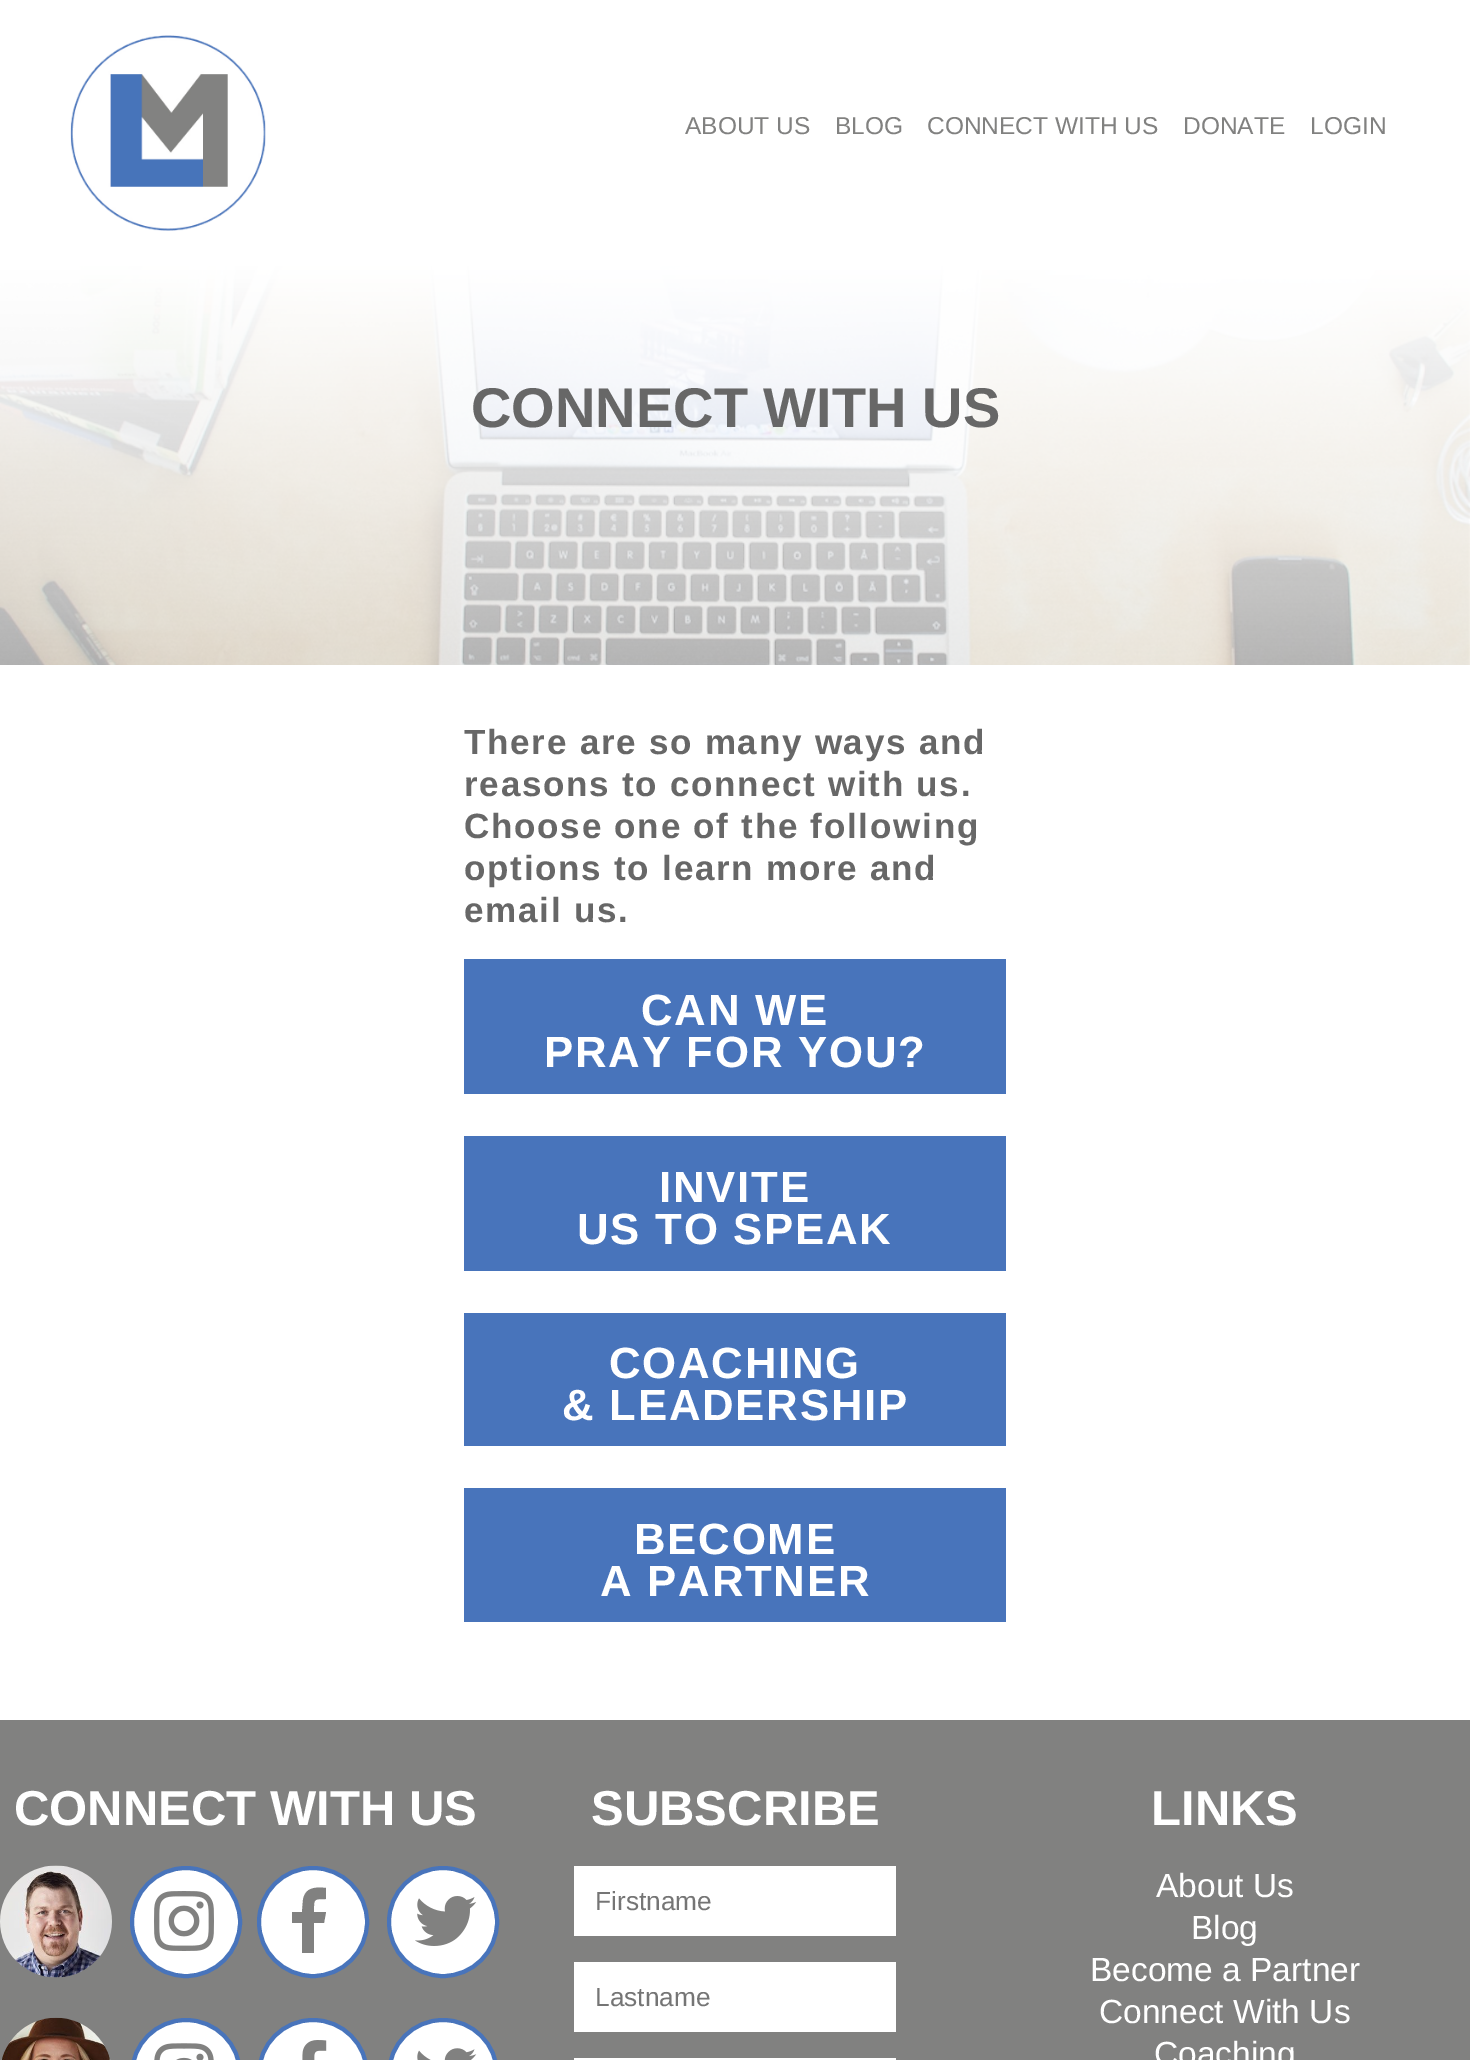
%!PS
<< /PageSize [1470 2060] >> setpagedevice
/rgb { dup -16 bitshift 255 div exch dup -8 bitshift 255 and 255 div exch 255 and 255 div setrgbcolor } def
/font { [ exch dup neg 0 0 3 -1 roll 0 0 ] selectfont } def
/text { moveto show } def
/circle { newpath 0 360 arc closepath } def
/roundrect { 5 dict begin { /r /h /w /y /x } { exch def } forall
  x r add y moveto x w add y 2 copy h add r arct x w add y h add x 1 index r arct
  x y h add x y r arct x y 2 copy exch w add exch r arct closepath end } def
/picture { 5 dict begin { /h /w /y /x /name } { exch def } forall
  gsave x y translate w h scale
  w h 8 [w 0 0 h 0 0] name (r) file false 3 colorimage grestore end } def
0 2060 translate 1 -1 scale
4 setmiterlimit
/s1 { /LiberationSans-Regular 24.5 font 16#818180 rgb } def
/s2 { /LiberationSans-Bold 56 font 16#676767 rgb } def
/s3 { /LiberationSans-Bold 49 font 16#FFFFFF rgb } def
/s4 { /LiberationSans-Regular 26.25 font 16#757575 rgb } def
/s5 { /LiberationSans-Regular 33.5 font 16#FFFFFF rgb } def
16#FFFFFF rgb
0 0 1470 2060 rectfill
(pic1.raw) 70 35 196 196 picture
s1
(ABOUT US) 685 134 text
(BLOG) 835 134 text
(CONNECT WITH US) 927 134 text
(DONATE) 1183 134 text
(LOGIN) 1310 134 text
(pic2.raw) 0 266 1470 399 picture
s2
(CONNECT WITH US) 471 427 text
/LiberationSans-Bold 35 font
464 754 moveto 1.75 0 (There are so many ways and) ashow
464 796 moveto 1.75 0 (reasons to connect with us.) ashow
464 838 moveto 1.75 0 (Choose one of the following) ashow
464 880 moveto 1.75 0 (options to learn more and) ashow
464 922 moveto 1.75 0 (email us.) ashow
16#4874BB rgb
464 959 542 135 rectfill
/LiberationSans-Bold 43.75 font
16#FFFFFF rgb
641 1025 moveto 1.75 0 (CAN WE) ashow
544 1067 moveto 1.75 0 (PRAY FOR YOU?) ashow
16#4874BB rgb
464 1136 542 135 rectfill
16#FFFFFF rgb
659 1202 moveto 1.75 0 (INVITE) ashow
577 1244 moveto 1.75 0 (US TO SPEAK) ashow
16#4874BB rgb
464 1313 542 133 rectfill
16#FFFFFF rgb
609 1378 moveto 1.75 0 (COACHING) ashow
562 1420 moveto 1.75 0 (& LEADERSHIP) ashow
16#4874BB rgb
464 1488 542 134 rectfill
16#FFFFFF rgb
634 1554 moveto 1.75 0 (BECOME) ashow
600 1596 moveto 1.75 0 (A PARTNER) ashow
16#818180 rgb
0 1720 1470 340 rectfill
s3
(CONNECT WITH US) 14 1825 text
(pic3.raw) 0 1865 112 113 picture
186 1922 54 circle gsave fill grestore
16#4874BB rgb
4 setlinewidth
stroke
(pic4.raw) 154 1891 60 60 picture
16#FFFFFF rgb
313 1922 54 circle gsave fill grestore
16#4874BB rgb
stroke
16#818180 rgb
326 1888 moveto 326 1899 lineto 313 1899 314 1899 314 1912 curveto 326 1912 lineto 324 1923 lineto 314 1923 lineto 314 1953 lineto 302 1953 lineto 302 1923 lineto 292 1923 lineto 292 1912 lineto 302 1912 lineto 303 1900 lineto 305 1887 316 1887 326 1888 curveto closepath fill
16#FFFFFF rgb
443 1922 54 circle gsave fill grestore
16#4874BB rgb
stroke
(pic5.raw) 415 1896 62 50 picture
(pic6.raw) 1 2017 110 43 picture
16#FFFFFF rgb
132 2020 108 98 54 roundrect gsave fill grestore
16#4874BB rgb
stroke
(pic7.raw) 154 2043 60 17 picture
16#FFFFFF rgb
259 2020 108 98 54 roundrect gsave fill grestore
16#4874BB rgb
stroke
(pic8.raw) 302 2040 25 20 picture
16#FFFFFF rgb
389 2020 108 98 54 roundrect gsave fill grestore
16#4874BB rgb
stroke
(pic9.raw) 417 2048 60 12 picture
s3
(SUBSCRIBE) 591 1825 text
574 1866 322 70 rectfill
s4
(Firstname) 595 1910 text
16#FFFFFF rgb
574 1962 322 70 rectfill
s4
(Lastname) 595 2006 text
16#FFFFFF rgb
574 2058 322 2 rectfill
s3
(LINKS) 1151 1825 text
s5
(About Us) 1156 1897 text
(Blog) 1191 1939 text
(Become a Partner) 1090 1981 text
(Connect With Us) 1099 2023 text
(Coaching) 1154 2065 text
showpage
